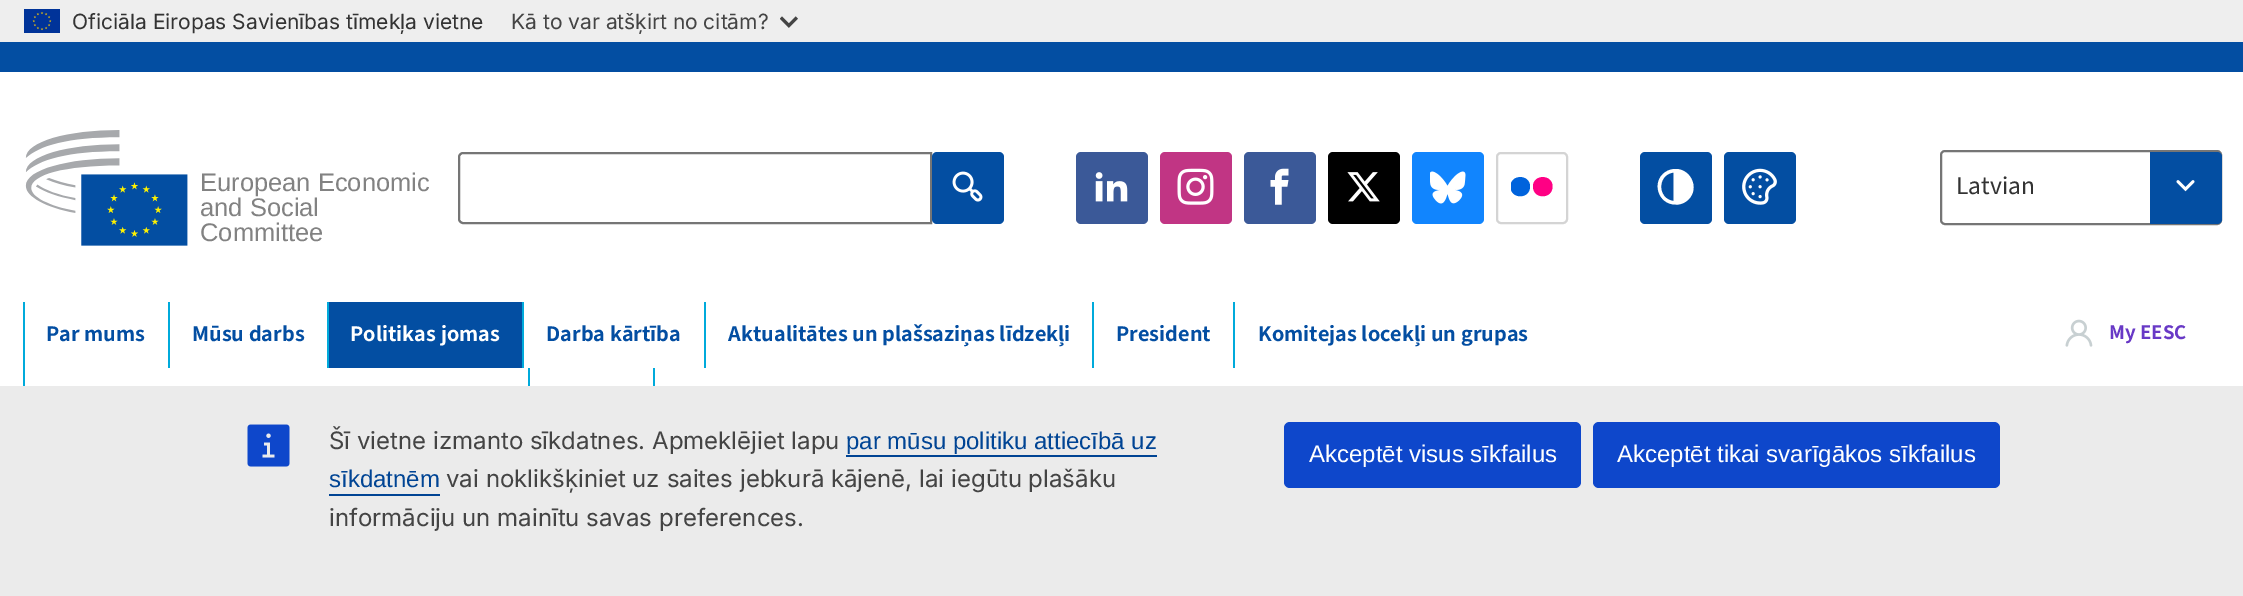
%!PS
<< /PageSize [2243 596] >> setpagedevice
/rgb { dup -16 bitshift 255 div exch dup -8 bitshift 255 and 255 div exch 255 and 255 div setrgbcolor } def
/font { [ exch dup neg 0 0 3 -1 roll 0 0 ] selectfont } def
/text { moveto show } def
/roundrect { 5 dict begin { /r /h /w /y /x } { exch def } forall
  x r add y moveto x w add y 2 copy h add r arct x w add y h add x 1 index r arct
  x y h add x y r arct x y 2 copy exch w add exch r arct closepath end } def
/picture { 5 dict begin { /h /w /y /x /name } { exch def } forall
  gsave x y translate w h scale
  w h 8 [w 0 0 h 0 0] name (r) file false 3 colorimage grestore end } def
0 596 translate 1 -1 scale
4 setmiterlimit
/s1 { /Inter-Regular 21 font 16#333333 rgb } def
/s2 { /Inter-Regular 21 font 16#444444 rgb } def
/s3 { /LiberationSans-Regular 25.5 font 16#828282 rgb } def
/s4 { /SourceSans3-Regular 25.5 font 16#333333 rgb } def
/s5 { /SourceSans3-SemiBold 22.5 font 16#034EA2 rgb } def
/s6 { /SourceSans3-SemiBold 22.5 font 16#FFFFFF rgb } def
/s7 { /SourceSans3-SemiBold 21 font 16#6839C6 rgb } def
/s8 { /Inter-Regular 24 font 16#444444 rgb } def
/s9 { /LiberationSans-Regular 24 font 16#004494 rgb } def
/s10 { /LiberationSans-Regular 24 font 16#FFFFFF rgb } def
16#FFFFFF rgb
0 0 2243 596 rectfill
16#EEEEEE rgb
0 0 2243 42 rectfill
(pic1.raw) 24 9 36 24 picture
s1
(Oficiāla Eiropas Savienības tīmekļa vietne) 72 29 text
s2
(Kā to var atšķirt no citām?) 511 29 text
(pic2.raw) 780 16 18 12 picture
16#034EA2 rgb
0 42 2243 30 rectfill
(pic3.raw) 25 130 163 116 picture
s3
(European Economic) 200 191 text
(and Social) 200 216 text
(Committee) 200 241 text
16#757575 rgb
2 setlinewidth
463 153 moveto 931 153 lineto 931 223 lineto 463 223 lineto 461 223 459 221 459 219 curveto 459 157 lineto 459 155 461 153 463 153 curveto closepath stroke
16#034EA2 rgb
932 152 72 72 5 roundrect fill
(pic4.raw) 952 171 31 31 picture
16#3B5998 rgb
1076 152 72 72 5 roundrect fill
(pic5.raw) 1095 172 33 30 picture
16#C13584 rgb
1160 152 72 72 5 roundrect fill
(pic6.raw) 1177 168 37 37 picture
16#3B5998 rgb
1244 152 72 72 5 roundrect fill
(pic7.raw) 1270 168 19 37 picture
16#000000 rgb
1328 152 72 72 5 roundrect fill
(pic8.raw) 1347 172 33 30 picture
16#1185FE rgb
1412 152 72 72 5 roundrect fill
(pic9.raw) 1430 171 36 33 picture
16#D4D4D4 rgb
1497 153 70 70 4 roundrect stroke
16#FF0084 rgb
1533 186.5 moveto 1533 199.5 1552.5 199.5 1552.5 186.5 curveto 1552.5 174 1533 174 1533 186.5 curveto closepath fill
gsave
1511 177 42 20 rectclip
16#0063DC rgb
1510.5 186.5 moveto 1510.5 199.5 1530 199.5 1530 186.5 curveto 1530 174 1510.5 174 1510.5 186.5 curveto closepath fill
grestore
16#034EA2 rgb
1640 152 72 72 5 roundrect fill
16#FFFFFF rgb
1675.5 169 moveto 1672 169 1668.5 170 1665.5 172 curveto 1651 181.5 1658 204.5 1675.5 204.5 curveto 1679 205 1683 203.5 1686 201.5 curveto 1700.5 191.5 1692.5 169 1675.5 169 curveto closepath 1673.5 201 moveto 1657 199 1657 174.5 1673.5 172.5 curveto closepath fill
16#034EA2 rgb
1724 152 72 72 5 roundrect fill
(pic10.raw) 1742 168 35 37 picture
16#757575 rgb
1941 151 280 73 4 roundrect stroke
s4
(Latvian) 1956 194 text
16#034EA2 rgb
2150 152 moveto 2217 152 lineto 2220 152 2222 154 2222 157 curveto 2222 219 lineto 2222 222 2220 224 2217 224 curveto 2150 224 lineto closepath fill
(pic11.raw) 2176 180 19 12 picture
16#00AADB rgb
23 302 2 84 rectfill
s5
(Par mums) 46 341 text
16#00AADB rgb
168 302 2 66 rectfill
s5
(Mūsu darbs) 192 341 text
329 302 193 66 rectfill
16#00AADB rgb
327 302 2 66 rectfill
s6
(Politikas jomas) 350 341 text
16#00AADB rgb
522 302 2 66 rectfill
s5
(Darba kārtība) 546 341 text
16#00AADB rgb
704 302 2 66 rectfill
s5
(Aktualitātes un plašsaziņas līdzekļi) 728 341 text
16#00AADB rgb
1092 302 2 66 rectfill
s5
(President) 1116 341 text
16#00AADB rgb
1233 302 2 66 rectfill
s5
(Komitejas locekļi un grupas) 1258 341 text
16#00AADB rgb
653 368 2 18 rectfill
528 368 2 18 rectfill
(pic12.raw) 2065 319 28 28 picture
s7
(My EESC) 2109 339 text
16#EBEBEB rgb
0 386 2243 210 rectfill
(pic13.raw) 247 424 43 43 picture
s8
(Šī vietne izmanto sīkdatnes. Apmeklējiet lapu) 329 449 text
s9
(par mūsu politiku attiecībā uz) 846 449 text
846 455 311 2 rectfill
(sīkdatnēm) 329 487 text
329 494 111 2 rectfill
s8
(vai noklikšķiniet uz saites jebkurā kājenē, lai iegūtu plašāku) 446 487 text
(informāciju un mainītu savas preferences.) 329 526 text
16#0E47CB rgb
1284 422 297 66 6 roundrect fill
s10
(Akceptēt visus sīkfailus) 1309 462 text
16#0E47CB rgb
1593 422 407 66 6 roundrect fill
s10
(Akceptēt tikai svarīgākos sīkfailus) 1617 462 text
showpage
